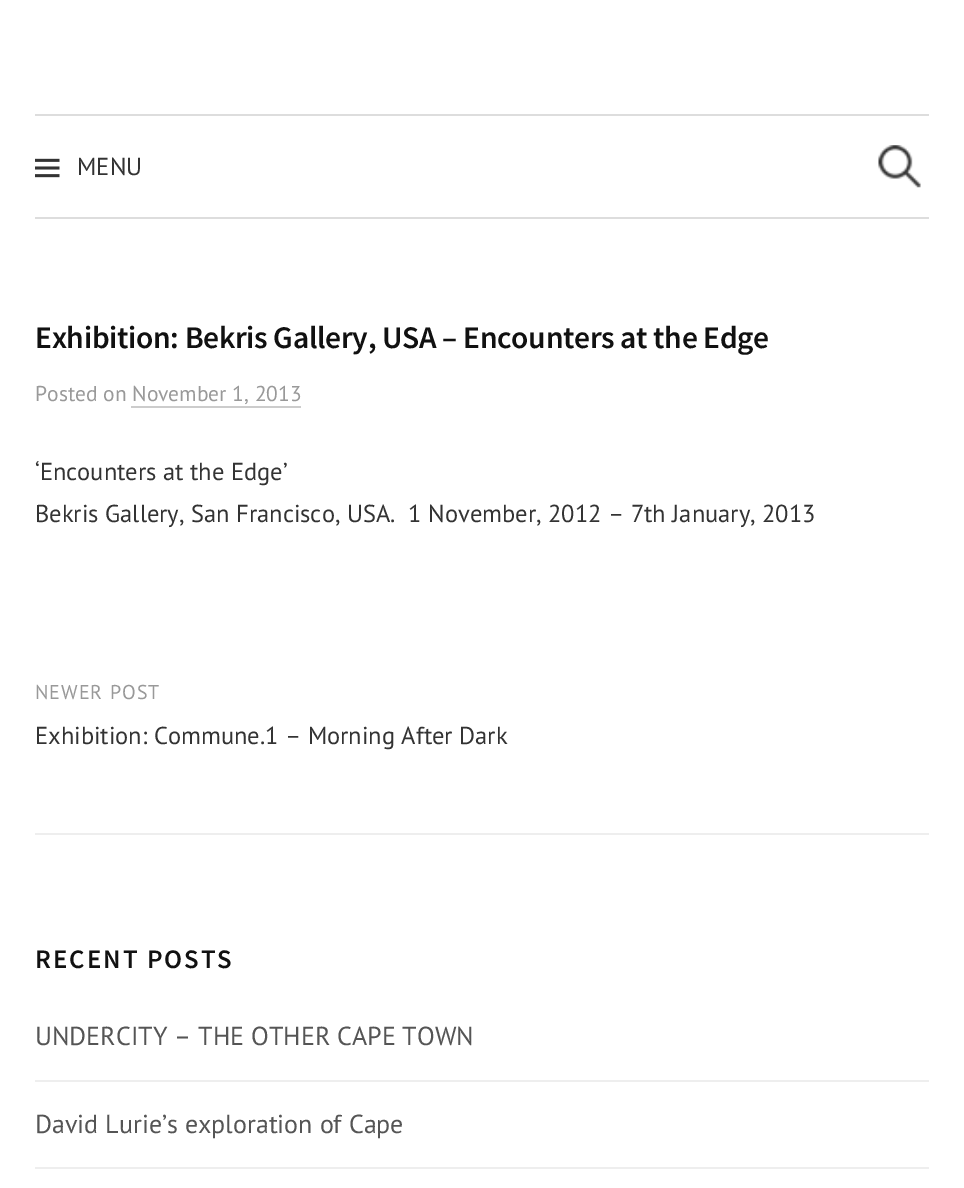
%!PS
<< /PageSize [964 1188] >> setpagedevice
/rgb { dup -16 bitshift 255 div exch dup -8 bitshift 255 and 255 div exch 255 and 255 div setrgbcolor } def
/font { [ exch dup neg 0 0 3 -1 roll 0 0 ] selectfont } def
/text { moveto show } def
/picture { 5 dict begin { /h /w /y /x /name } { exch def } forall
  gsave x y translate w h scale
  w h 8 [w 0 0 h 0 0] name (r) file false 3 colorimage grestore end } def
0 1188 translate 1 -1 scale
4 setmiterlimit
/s1 { /PTSans-Regular 24.5 font 16#333333 rgb } def
/s2 { /PTSans-Regular 21.5 font 16#999999 rgb } def
/s3 { /PTSans-Regular 26 font 16#555555 rgb } def
16#FFFFFF rgb
0 0 964 1188 rectfill
16#DDDDDD rgb
35 114 894 2 rectfill
35 217 894 2 rectfill
(pic1.raw) 35 158 25 20 picture
s1
(MENU) 77 175 text
(pic2.raw) 878 145 43 43 picture
/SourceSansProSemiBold-SemiBold 31.5 font
16#111111 rgb
35 348 moveto -0.32 0 (Exhibition: Bekris Gallery, USA – Encounters at the Edge) ashow
s2
(Posted on November 1, 2013) 35 401 text
16#CCCCCC rgb
131 406 170 2 rectfill
s1
(‘Encounters at the Edge’) 35 480 text
(Bekris Gallery, San Francisco, USA.  1 November, 2012 – 7th January, 2013) 35 522 text
/PTSans-Regular 20 font
16#999999 rgb
35 699 moveto 1 0 (NEWER POST) ashow
s1
(Exhibition: Commune.1 – Morning After Dark) 35 744 text
16#EEEEEE rgb
35 833 894 2 rectfill
/SourceSansProSemiBold-SemiBold 26.75 font
16#111111 rgb
35 968 moveto 2 0 (RECENT POSTS) ashow
s3
(UNDERCITY – THE OTHER CAPE TOWN) 35 1045 text
16#EEEEEE rgb
35 1080 894 2 rectfill
s3
(David Lurie’s exploration of Cape) 35 1133 text
16#EEEEEE rgb
35 1167 894 2 rectfill
showpage
